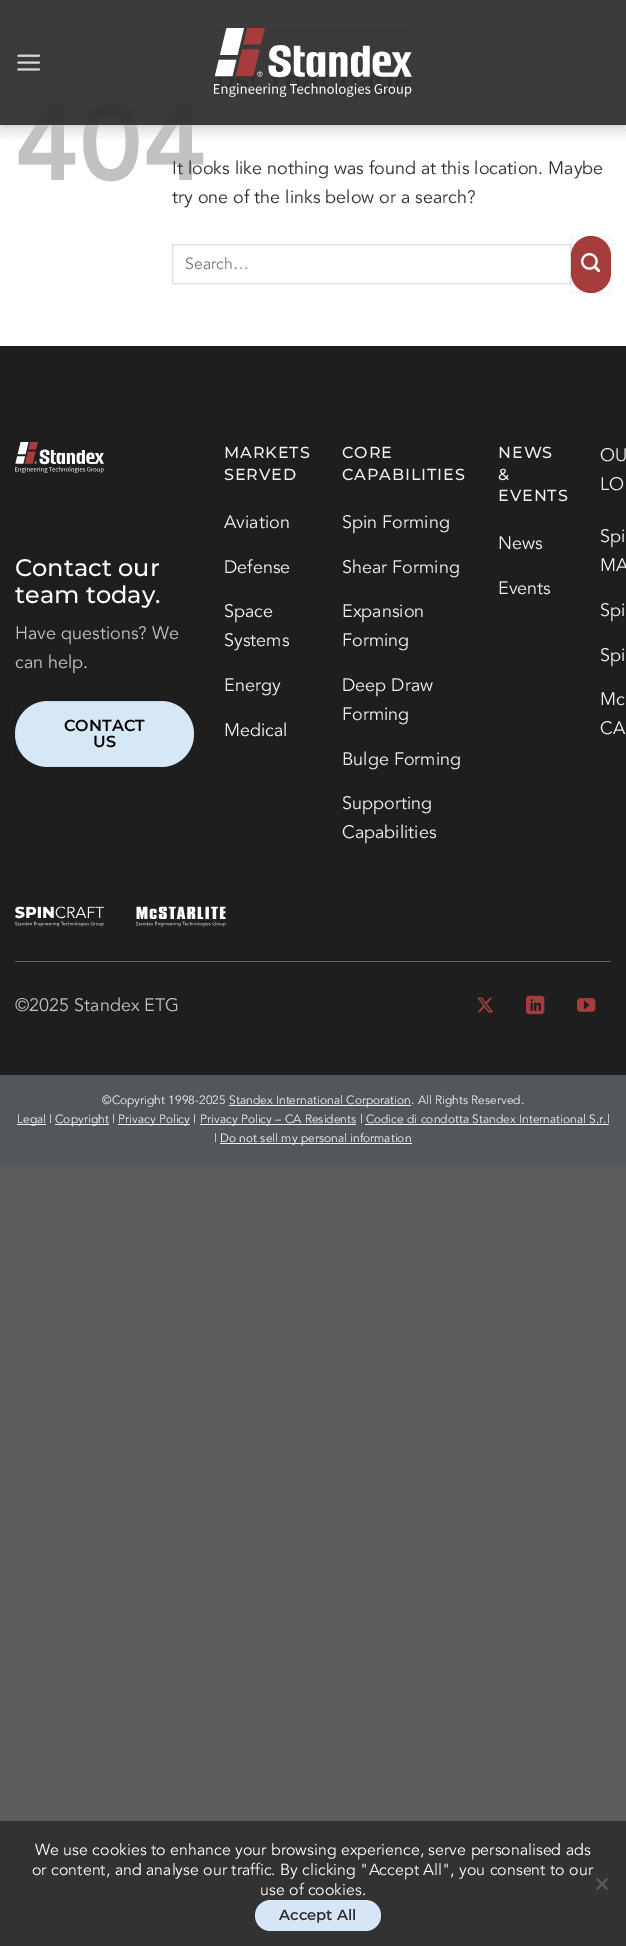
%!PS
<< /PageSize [626 1946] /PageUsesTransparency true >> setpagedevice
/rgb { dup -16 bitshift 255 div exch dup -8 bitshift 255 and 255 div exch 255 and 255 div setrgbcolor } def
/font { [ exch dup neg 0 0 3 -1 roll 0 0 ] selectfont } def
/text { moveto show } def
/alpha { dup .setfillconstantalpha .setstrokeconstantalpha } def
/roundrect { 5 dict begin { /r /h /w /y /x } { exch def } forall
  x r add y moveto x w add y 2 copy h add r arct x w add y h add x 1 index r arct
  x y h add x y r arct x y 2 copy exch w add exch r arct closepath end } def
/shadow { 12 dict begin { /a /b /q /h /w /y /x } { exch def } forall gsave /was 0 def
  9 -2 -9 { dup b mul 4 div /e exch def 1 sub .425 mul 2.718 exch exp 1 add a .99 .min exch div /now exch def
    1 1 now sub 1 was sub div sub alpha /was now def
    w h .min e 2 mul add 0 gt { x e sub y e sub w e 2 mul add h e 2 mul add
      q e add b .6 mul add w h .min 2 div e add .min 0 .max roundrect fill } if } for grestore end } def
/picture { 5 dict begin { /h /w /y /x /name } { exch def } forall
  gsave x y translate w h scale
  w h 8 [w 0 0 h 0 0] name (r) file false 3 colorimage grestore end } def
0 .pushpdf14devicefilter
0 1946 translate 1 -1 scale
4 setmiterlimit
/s1 { /Avenir-Black 108 font 16#C1C1C1 rgb } def
/s2 { /Avenir-Regular 18 font 16#303030 rgb } def
/s3 { /Avenir-Regular 16 font 16#757575 rgb } def
/s4 { /Montserrat-Medium 24 font 16#FFFFFF rgb } def
/s5 { /Avenir-Regular 18 font 16#C1C1C1 rgb } def
/s6 { /Montserrat-SemiBold 16 font 16#000000 rgb } def
/s7 { /Avenir-Regular 18 font 16#F1F1F1 rgb } def
/s8 { /Avenir-Regular 12 font 16#F1F1F1 rgb } def
/s9 { /Avenir-Regular 16 font 16#FFFFFF rgb } def
/s10 { /Montserrat-SemiBold 14.75 font 16#303030 rgb } def
16#5B5B5B rgb
0 0 626 1946 rectfill
16#FFFFFF rgb
0 0 626 346 rectfill
gsave
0 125 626 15 rectclip
16#000000 rgb
0 0 626 125 0 10 0.3 shadow
grestore
s1
(404) 15 180 text
0.95 alpha
16#303030 rgb
0 0 626 125 rectfill
1 alpha
(pic1.raw) 17 54 24 17 picture
(pic2.raw) 214 28 198 69 picture
s2
(It looks like nothing was found at this location. Maybe) 172 174 text
(try one of the links below or a search?) 172 203 text
16#DDDDDD rgb
172.5 244.5 398 39 rectstroke
s3
(Search…) 185 269 text
16#A63C3C rgb
571 236 40 57 20 roundrect fill
0.05 alpha
16#000000 rgb
571.5 236.5 39 56 rectstroke
1 alpha
(pic3.raw) 581 253 20 20 picture
16#1E1E1E rgb
0 346 626 729 rectfill
(pic4.raw) 15 442 89 31 picture
s4
(Contact our) 15 576 text
(team today.) 15 603 text
s5
(Have questions? We) 15 639 text
(can help.) 15 668 text
16#D6E7F6 rgb
15 701 179 66 33 roundrect fill
0.05 alpha
16#000000 rgb
15.5 701.5 178 65 rectstroke
1 alpha
s6
(CONTACT) 64 731 text
(US) 93 747 text
/Montserrat-Medium 16 font
16#F1F1F1 rgb
224 458 moveto 0.9 0 (MARKETS) ashow
224 480 moveto 0.9 0 (SERVED) ashow
s7
(Aviation) 224 528 text
(Defense) 224 573 text
(Space) 224 617 text
(Systems) 224 646 text
(Energy) 224 691 text
(Medical) 224 736 text
/Montserrat-Medium 16 font
342 458 moveto 0.9 0 (CORE) ashow
342 480 moveto 0.9 0 (CAPABILITIES) ashow
s7
(Spin Forming) 342 528 text
(Shear Forming) 342 573 text
(Expansion) 342 617 text
(Forming) 342 646 text
(Deep Draw) 342 691 text
(Forming) 342 720 text
(Bulge Forming) 342 765 text
(Supporting) 342 809 text
(Capabilities) 342 838 text
/Montserrat-Medium 16 font
498 458 moveto 0.9 0 (NEWS) ashow
498 480 moveto 0.9 0 (&) ashow
498 501 moveto 0.9 0 (EVENTS) ashow
s7
(News) 498 549 text
(Events) 498 594 text
(OU) 600 461 text
(LO) 600 490 text
(Spi) 600 542 text
(MA) 600 571 text
(Spi) 600 616 text
(Spi) 600 661 text
(Mc) 600 705 text
(CA) 600 734 text
(pic5.raw) 15 906 89 21 picture
(pic6.raw) 136 906 90 21 picture
16#626262 rgb
15 961 596 1 rectfill
s5
(©2025 Standex ETG) 15 1011 text
(pic7.raw) 477 997 17 16 picture
(pic8.raw) 526 995 19 20 picture
(pic9.raw) 577 998 19 14 picture
16#53565A rgb
0 1075 626 89 rectfill
s8
(©Copyright 1998-2025) 102 1104 text
229 1105 182 1 rectfill
(Standex International Corporation. All Rights Reserved.) 229 1104 text
17 1124 29 1 rectfill
(Legal |) 17 1123 text
55 1124 54 1 rectfill
(Copyright |) 55 1123 text
118 1124 72 1 rectfill
(Privacy Policy |) 118 1123 text
200 1124 156 1 rectfill
(Privacy Policy – CA Residents | Codice di condotta Standex International S.r.l) 200 1123 text
365 1124 244 1 rectfill
(|) 214 1142 text
220 1143 192 1 rectfill
(Do not sell my personal information) 220 1142 text
16#323232 rgb
0 1821 626 125 rectfill
s9
(We use cookies to enhance your browsing experience, serve personalised ads) 35 1855 text
(or content, and analyse our traffic. By clicking "Accept All", you consent to our) 32 1875 text
(use of cookies.) 260 1895 text
16#595959 rgb
606.5 1878 moveto 608 1879.5 lineto 597.5 1890 lineto 596 1888.5 lineto closepath fill
596 1879.5 moveto 597.5 1878 lineto 608 1888.5 lineto 606.5 1890 lineto closepath fill
16#D6E6F6 rgb
255 1900 126 31 15.5 roundrect fill
s10
(Accept All) 279 1920 text
.poppdf14devicefilter showpage
